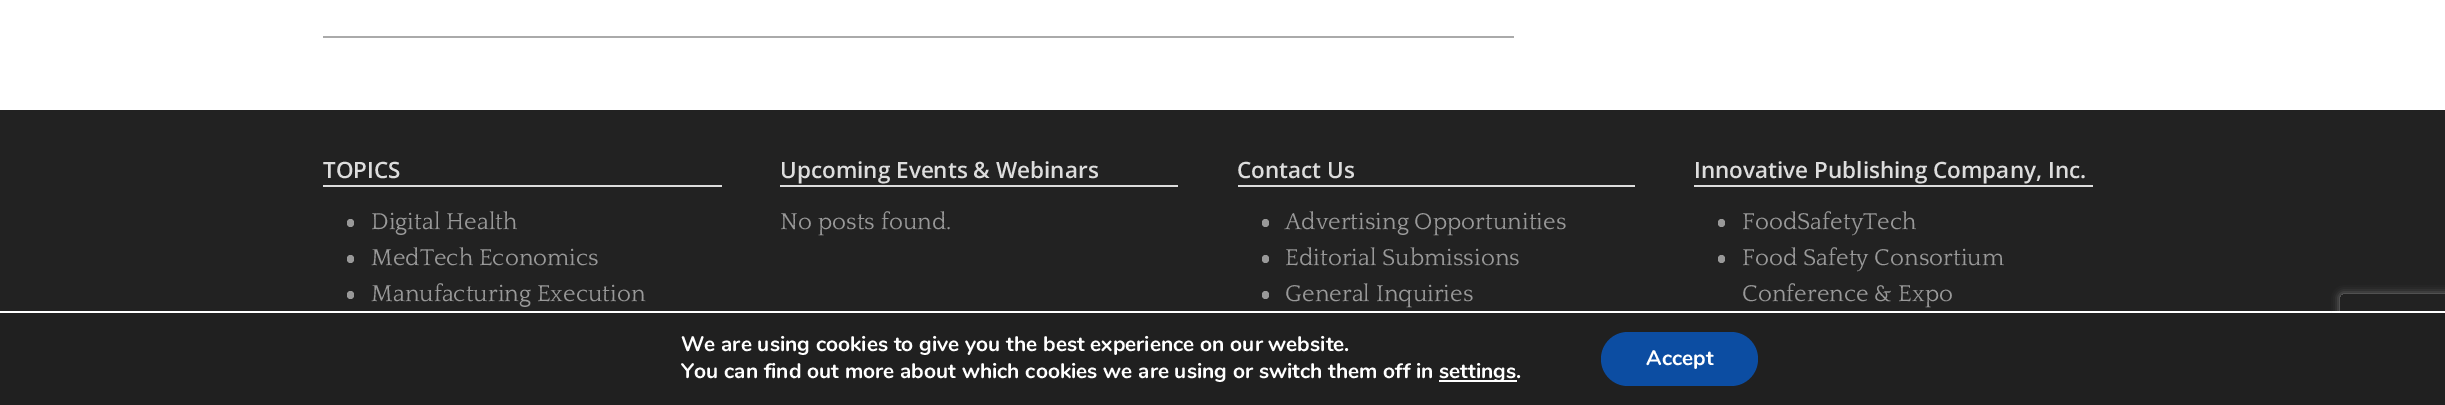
%!PS
<< /PageSize [2445 405] /PageUsesTransparency true >> setpagedevice
/rgb { dup -16 bitshift 255 div exch dup -8 bitshift 255 and 255 div exch 255 and 255 div setrgbcolor } def
/font { [ exch dup neg 0 0 3 -1 roll 0 0 ] selectfont } def
/text { moveto show } def
/alpha { dup .setfillconstantalpha .setstrokeconstantalpha } def
/roundrect { 5 dict begin { /r /h /w /y /x } { exch def } forall
  x r add y moveto x w add y 2 copy h add r arct x w add y h add x 1 index r arct
  x y h add x y r arct x y 2 copy exch w add exch r arct closepath end } def
/shadow { 12 dict begin { /a /b /q /h /w /y /x } { exch def } forall gsave /was 0 def
  9 -2 -9 { dup b mul 4 div /e exch def 1 sub .425 mul 2.718 exch exp 1 add a .99 .min exch div /now exch def
    1 1 now sub 1 was sub div sub alpha /was now def
    w h .min e 2 mul add 0 gt { x e sub y e sub w e 2 mul add h e 2 mul add
      q e add b .6 mul add w h .min 2 div e add .min 0 .max roundrect fill } if } for grestore end } def
0 .pushpdf14devicefilter
0 405 translate 1 -1 scale
4 setmiterlimit
/s1 { /OpenSans-SemiBold 22.5 font 16#DDDDDD rgb } def
/s2 { /Quattrocento-Regular 24 font 16#999999 rgb } def
/s3 { /Nunito-Bold 21 font 16#FFFFFF rgb } def
16#FFFFFF rgb
0 0 2445 405 rectfill
16#AAAAAA rgb
323 36 1191 2 rectfill
16#222222 rgb
0 110 2445 201 rectfill
16#DDDDDD rgb
323 185 399 2 rectfill
s1
(TOPICS) 323 178 text
16#999999 rgb
347 219 7 8 3.5 roundrect fill
s2
(Digital Health) 371 229 text
347 255 7 8 3.5 roundrect fill
(MedTech Economics) 371 265 text
347 291 7 8 3.5 roundrect fill
(Manufacturing Execution) 371 301 text
16#DDDDDD rgb
780 185 398 2 rectfill
s1
(Upcoming Events & Webinars) 780 178 text
s2
(No posts found.) 780 229 text
16#DDDDDD rgb
1238 185 397 2 rectfill
s1
(Contact Us) 1237 178 text
16#999999 rgb
1262 219 7 8 3.5 roundrect fill
s2
(Advertising Opportunities) 1285 229 text
1262 255 7 8 3.5 roundrect fill
(Editorial Submissions) 1285 265 text
1262 291 7 8 3.5 roundrect fill
(General Inquiries) 1285 301 text
16#DDDDDD rgb
1694 185 399 2 rectfill
s1
(Innovative Publishing Company, Inc.) 1694 178 text
16#999999 rgb
1718 219 7 8 3.5 roundrect fill
s2
(FoodSafetyTech) 1742 229 text
1718 255 7 8 3.5 roundrect fill
(Food Safety Consortium) 1742 265 text
(Conference & Expo) 1742 301 text
gsave
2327 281 moveto 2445 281 lineto 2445 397 lineto 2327 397 lineto closepath 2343 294 moveto 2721 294 lineto 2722.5 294 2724 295.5 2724 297 curveto 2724 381 lineto 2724 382.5 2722.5 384 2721 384 curveto 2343 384 lineto 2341.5 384 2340 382.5 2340 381 curveto 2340 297 lineto 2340 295.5 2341.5 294 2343 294 curveto closepath eoclip newpath
16#808080 rgb
2340 294 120 90 3 4 1 shadow
grestore
16#202020 rgb
0 313 2445 92 rectfill
16#FFFFFF rgb
2332 311 8 2 rectfill
s3
(We are using cookies to give you the best experience on our website.) 681 351 text
(You can find out more about which cookies we are using or switch them off in) 681 378 text
1439 380 78 2 rectfill
(settings.) 1439 378 text
16#0C4DA2 rgb
1601 332 157 54 27 roundrect fill
s3
(Accept) 1646 365 text
.poppdf14devicefilter showpage
